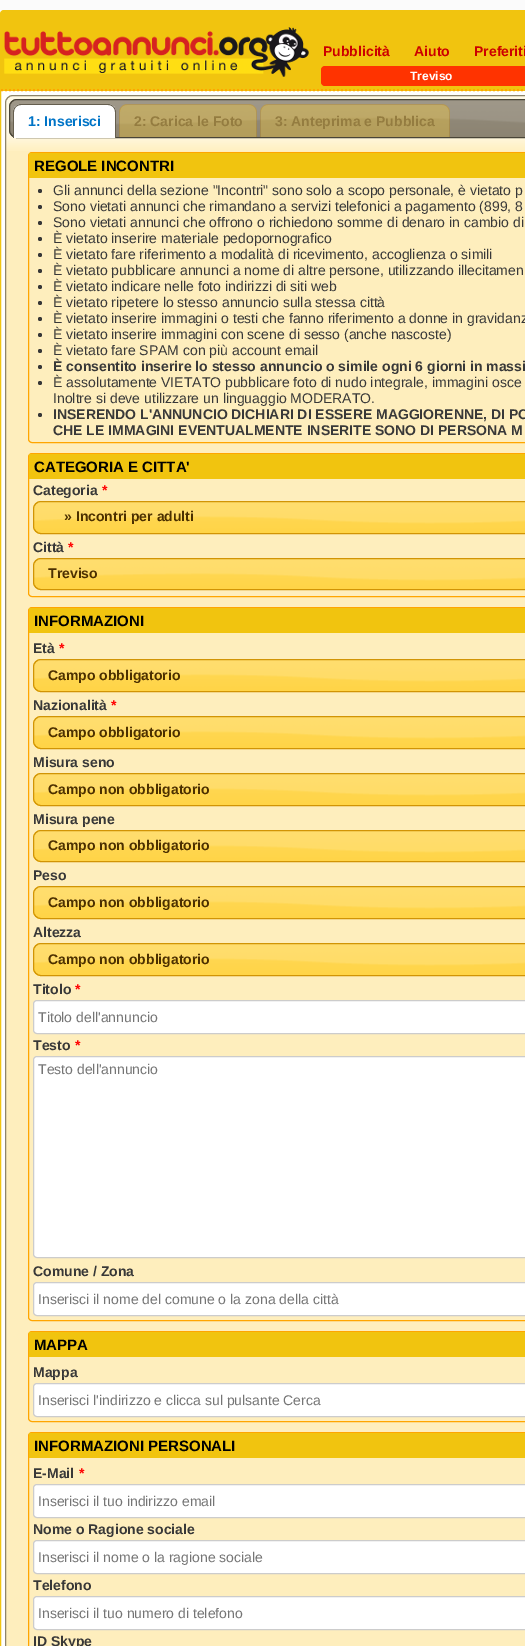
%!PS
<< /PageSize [525 1646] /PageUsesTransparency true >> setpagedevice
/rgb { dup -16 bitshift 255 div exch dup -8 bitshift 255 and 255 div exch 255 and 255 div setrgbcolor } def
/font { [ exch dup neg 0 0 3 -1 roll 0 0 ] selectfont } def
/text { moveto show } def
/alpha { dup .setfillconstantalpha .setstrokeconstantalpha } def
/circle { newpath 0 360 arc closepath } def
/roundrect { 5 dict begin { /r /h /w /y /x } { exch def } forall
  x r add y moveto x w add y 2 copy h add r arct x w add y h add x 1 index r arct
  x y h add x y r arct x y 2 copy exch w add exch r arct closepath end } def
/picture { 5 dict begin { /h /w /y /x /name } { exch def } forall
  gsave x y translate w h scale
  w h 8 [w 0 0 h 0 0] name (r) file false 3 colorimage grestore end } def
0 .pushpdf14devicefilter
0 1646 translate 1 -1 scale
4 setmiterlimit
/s1 { /LiberationSans-Bold 14 font 16#CC0000 rgb } def
/s2 { /LiberationSans-Bold 12 font 16#FFFFFF rgb } def
/s3 { /LiberationSans-Bold 14 font 16#0074C7 rgb } def
/s4 { /LiberationSans-Bold 14 font 16#947C40 rgb } def
/s5 { /LiberationSans-Bold 15 font 16#000000 rgb } def
/s6 { /LiberationSans-Regular 14 font 16#383838 rgb } def
/s7 { /LiberationSans-Bold 14 font 16#383838 rgb } def
/s8 { /LiberationSans-Bold 14 font 16#FF0000 rgb } def
/s9 { /LiberationSans-Bold 14 font 16#4C3000 rgb } def
/s10 { /LiberationSans-Regular 14 font 16#757575 rgb } def
16#FBFBFB rgb
0 0 525 1646 rectfill
16#FFFFFF rgb
0.5 10.5 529 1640 3.5 roundrect gsave fill grestore
16#F1C40F rgb
stroke
1 11 524 80 rectfill
16#FFA500 rgb
2 setlinewidth
[2 2] 0 setdash
1 90 moveto 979 90 lineto stroke
(pic1.raw) 4 27 305 50 picture
s1
(Pubblicità) 323 56 text
(Aiuto) 414 56 text
(Preferiti) 474 56 text
16#FF3300 rgb
321 66 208 20 4 roundrect fill
s2
(Treviso) 410 80 text
16#FEEEBD rgb
5 95 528 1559 8 roundrect fill
(pic2.raw) 5 96 520 55 picture
16#8E846B rgb
1 setlinewidth
[] 0 setdash
5.5 95.5 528 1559 7.5 roundrect stroke
(pic3.raw) 9 99 516 38 picture
16#494437 rgb
9.5 99.5 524 38 7.5 roundrect stroke
(pic4.raw) 13 104 103 34 picture
16#655E4E rgb
21 104 moveto 108 104 lineto 112 104 116 108 116 112 curveto 116 138 lineto 13 138 lineto 13 112 lineto 13 108 17 104 21 104 curveto closepath 21 105 moveto 108 105 lineto 112 105 115 108 115 112 curveto 115 138 lineto 14 138 lineto 14 112 lineto 14 108 17 105 21 105 curveto closepath eofill
s3
(1: Inserisci) 28 126 text
0.35 alpha
16#FECE2F rgb
127 105 moveto 249 105 lineto 253 105 256 108 256 112 curveto 256 137 lineto 120 137 lineto 120 112 lineto 120 108 123 105 127 105 curveto closepath fill
16#D19405 rgb
127 104 moveto 249 104 lineto 253 104 257 108 257 112 curveto 257 137 lineto 119 137 lineto 119 112 lineto 119 108 123 104 127 104 curveto closepath 127 105 moveto 249 105 lineto 253 105 256 108 256 112 curveto 256 137 lineto 120 137 lineto 120 112 lineto 120 108 123 105 127 105 curveto closepath eofill
1 alpha
s4
(2: Carica le Foto) 134 126 text
0.35 alpha
16#FECE2F rgb
268 105 moveto 442 105 lineto 446 105 449 108 449 112 curveto 449 137 lineto 261 137 lineto 261 112 lineto 261 108 264 105 268 105 curveto closepath fill
16#D19405 rgb
268 104 moveto 442 104 lineto 446 104 450 108 450 112 curveto 450 137 lineto 260 137 lineto 260 112 lineto 260 108 264 104 268 104 curveto closepath 268 105 moveto 442 105 lineto 446 105 449 108 449 112 curveto 449 137 lineto 261 137 lineto 261 112 lineto 261 108 264 105 268 105 curveto closepath eofill
1 alpha
s4
(3: Anteprima e Pubblica) 275 126 text
16#FFA500 rgb
28.5 152.5 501 290 3.5 roundrect stroke
16#F1C40F rgb
29 153 496 25 rectfill
s5
(REGOLE INCONTRI) 34 171 text
16#383838 rgb
40 191 2 circle fill
s6
(Gli annunci della sezione "Incontri" sono solo a scopo personale, è vietato p) 53 195 text
40 207 2 circle fill
(Sono vietati annunci che rimandano a servizi telefonici a pagamento \(899, 8) 53 211 text
40 223 2 circle fill
(Sono vietati annunci che offrono o richiedono somme di denaro in cambio di) 53 227 text
40 239 2 circle fill
(È vietato inserire materiale pedopornografico) 53 243 text
40 255 2 circle fill
(È vietato fare riferimento a modalità di ricevimento, accoglienza o simili) 53 259 text
40 271 2 circle fill
(È vietato pubblicare annunci a nome di altre persone, utilizzando illecitamen) 53 275 text
40 287 2 circle fill
(È vietato indicare nelle foto indirizzi di siti web) 53 291 text
40 303 2 circle fill
(È vietato ripetere lo stesso annuncio sulla stessa città) 53 307 text
40 319 2 circle fill
(È vietato inserire immagini o testi che fanno riferimento a donne in gravidanz) 53 323 text
40 335 2 circle fill
(È vietato inserire immagini con scene di sesso \(anche nascoste\)) 53 339 text
40 351 2 circle fill
(È vietato fare SPAM con più account email) 53 355 text
40 367 2 circle fill
s7
(È consentito inserire lo stesso annuncio o simile ogni 6 giorni in massi) 53 371 text
40 383 2 circle fill
s6
(È assolutamente VIETATO pubblicare foto di nudo integrale, immagini osce) 53 387 text
(Inoltre si deve utilizzare un linguaggio MODERATO.) 53 403 text
40 415 2 circle fill
s7
(INSERENDO L'ANNUNCIO DICHIARI DI ESSERE MAGGIORENNE, DI PO) 53 419 text
(CHE LE IMMAGINI EVENTUALMENTE INSERITE SONO DI PERSONA M) 53 435 text
16#FFA500 rgb
28.5 453.5 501 143 3.5 roundrect stroke
16#F1C40F rgb
29 454 496 25 rectfill
s5
(CATEGORIA E CITTA') 34 472 text
s7
(Categoria) 33 495 text
s8
(*) 102 495 text
(pic5.raw) 33 501 492 33 picture
16#D19405 rgb
33.5 501.5 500 32 7.5 roundrect stroke
s9
(» Incontri per adulti) 64 521 text
s7
(Città) 33 552 text
s8
(*) 68 552 text
(pic6.raw) 33 558 492 32 picture
16#D19405 rgb
33.5 558.5 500 31 7.5 roundrect stroke
s9
(Treviso) 48 578 text
16#FFA500 rgb
28.5 607.5 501 713 3.5 roundrect stroke
16#F1C40F rgb
29 608 496 25 rectfill
s5
(INFORMAZIONI) 34 626 text
s7
(Età) 33 653 text
s8
(*) 59 653 text
(pic5.raw) 33 659 492 33 picture
16#D19405 rgb
33.5 659.5 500 32 7.5 roundrect stroke
s9
(Campo obbligatorio) 48 680 text
s7
(Nazionalità) 33 710 text
s8
(*) 111 710 text
(pic5.raw) 33 716 492 33 picture
16#D19405 rgb
33.5 716.5 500 32 7.5 roundrect stroke
s9
(Campo obbligatorio) 48 737 text
s7
(Misura seno) 33 767 text
(pic5.raw) 33 773 492 33 picture
16#D19405 rgb
33.5 773.5 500 32 7.5 roundrect stroke
s9
(Campo non obbligatorio) 48 794 text
s7
(Misura pene) 33 824 text
(pic6.raw) 33 830 492 32 picture
16#D19405 rgb
33.5 830.5 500 31 7.5 roundrect stroke
s9
(Campo non obbligatorio) 48 850 text
s7
(Peso) 33 880 text
(pic5.raw) 33 886 492 33 picture
16#D19405 rgb
33.5 886.5 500 32 7.5 roundrect stroke
s9
(Campo non obbligatorio) 48 907 text
s7
(Altezza) 33 937 text
(pic5.raw) 33 943 492 33 picture
16#D19405 rgb
33.5 943.5 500 32 7.5 roundrect stroke
s9
(Campo non obbligatorio) 48 964 text
s7
(Titolo) 33 994 text
s8
(*) 75 994 text
16#FFFFFF rgb
33.5 1000.5 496 33 3.5 roundrect gsave fill grestore
16#CCCCCC rgb
stroke
s10
(Titolo dell'annuncio) 38 1022 text
s7
(Testo) 33 1050 text
s8
(*) 75 1050 text
16#FFFFFF rgb
33.5 1056.5 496 201 3.5 roundrect gsave fill grestore
16#CCCCCC rgb
stroke
s10
(Testo dell'annuncio) 38 1074 text
s7
(Comune / Zona) 33 1276 text
16#FFFFFF rgb
33.5 1282.5 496 33 3.5 roundrect gsave fill grestore
16#CCCCCC rgb
stroke
s10
(Inserisci il nome del comune o la zona della città) 38 1304 text
16#FFA500 rgb
28.5 1331.5 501 90 3.5 roundrect stroke
16#F1C40F rgb
29 1332 496 25 rectfill
s5
(MAPPA) 34 1350 text
s7
(Mappa) 33 1377 text
16#FFFFFF rgb
33.5 1383.5 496 33 3.5 roundrect gsave fill grestore
16#CCCCCC rgb
stroke
s10
(Inserisci l'indirizzo e clicca sul pulsante Cerca) 38 1405 text
16#FFA500 rgb
28.5 1432.5 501 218 3.5 roundrect stroke
16#F1C40F rgb
29 1433 496 25 rectfill
s5
(INFORMAZIONI PERSONALI) 34 1451 text
s7
(E-Mail) 33 1478 text
s8
(*) 79 1478 text
16#FFFFFF rgb
33.5 1484.5 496 33 3.5 roundrect gsave fill grestore
16#CCCCCC rgb
stroke
s10
(Inserisci il tuo indirizzo email) 38 1506 text
s7
(Nome o Ragione sociale) 33 1534 text
16#FFFFFF rgb
33.5 1540.5 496 33 3.5 roundrect gsave fill grestore
16#CCCCCC rgb
stroke
s10
(Inserisci il nome o la ragione sociale) 38 1562 text
s7
(Telefono) 33 1590 text
16#FFFFFF rgb
33.5 1596.5 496 33 3.5 roundrect gsave fill grestore
16#CCCCCC rgb
stroke
s10
(Inserisci il tuo numero di telefono) 38 1618 text
s7
(ID Skype) 33 1646 text
.poppdf14devicefilter showpage
